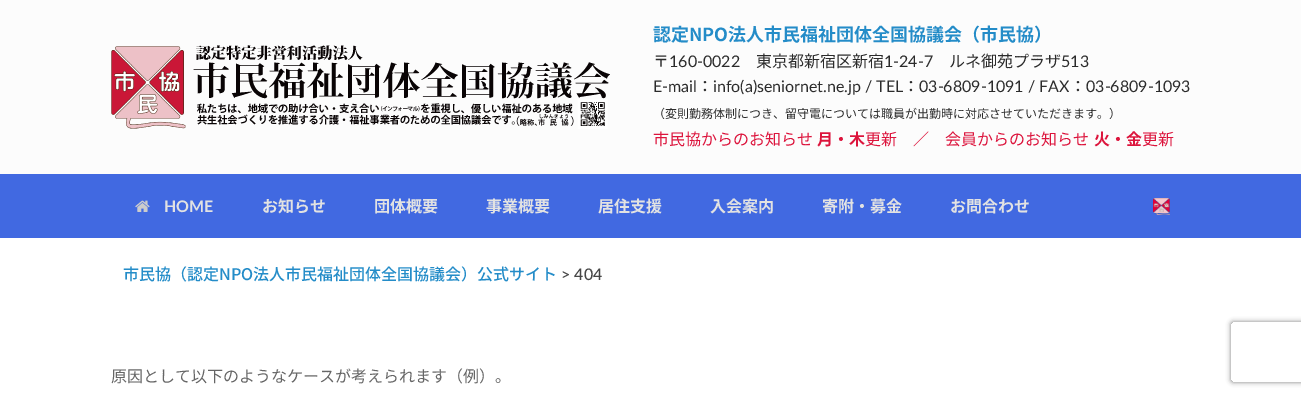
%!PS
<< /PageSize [1301 396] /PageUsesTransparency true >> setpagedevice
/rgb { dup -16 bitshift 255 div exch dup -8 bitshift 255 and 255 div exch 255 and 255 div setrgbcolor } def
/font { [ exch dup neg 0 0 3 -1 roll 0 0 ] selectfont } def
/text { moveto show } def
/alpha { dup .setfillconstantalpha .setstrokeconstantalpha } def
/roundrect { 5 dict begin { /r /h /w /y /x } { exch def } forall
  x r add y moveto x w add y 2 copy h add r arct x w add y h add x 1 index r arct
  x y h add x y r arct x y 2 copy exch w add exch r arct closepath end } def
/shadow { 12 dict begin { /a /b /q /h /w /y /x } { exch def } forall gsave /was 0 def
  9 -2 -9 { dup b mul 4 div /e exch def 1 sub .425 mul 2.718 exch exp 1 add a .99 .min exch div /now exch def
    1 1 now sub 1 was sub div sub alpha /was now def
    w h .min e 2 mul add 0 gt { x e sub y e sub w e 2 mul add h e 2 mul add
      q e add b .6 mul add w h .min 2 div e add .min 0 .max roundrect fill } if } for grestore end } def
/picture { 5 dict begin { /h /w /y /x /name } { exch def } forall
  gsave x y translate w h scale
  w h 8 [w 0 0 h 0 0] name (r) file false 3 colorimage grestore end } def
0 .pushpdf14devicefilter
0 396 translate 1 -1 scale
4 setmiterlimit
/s1 { /NotoSansJP-Bold 18 font 16#248CC8 rgb } def
/s2 { /NotoSansJP-Regular 16 font 16#2B2B2B rgb } def
/s3 { /Lato-Regular 16 font 16#2B2B2B rgb } def
/s4 { /NotoSansJP-Regular 12 font 16#2B2B2B rgb } def
/s5 { /NotoSansJP-Regular 16 font 16#DC143C rgb } def
/s6 { /NotoSansJP-Bold 16 font 16#DC143C rgb } def
/s7 { /Lato-Bold 16 font 16#E2E2E2 rgb } def
/s8 { /NotoSansJP-Bold 16 font 16#E2E2E2 rgb } def
/s9 { /NotoSansJP-Medium 16 font 16#248CC8 rgb } def
/s10 { /Lato-Medium 16 font 16#474747 rgb } def
/s11 { /NotoSansJP-Regular 16 font 16#666666 rgb } def
16#FCFCFC rgb
0 0 1301 396 rectfill
(pic1.raw) 111 45 499 84 picture
s1
(認定NPO法人市民福祉団体全国協議会（市民協）) 653 41 text
s2
(〒) 653 67 text
s3
(160-0022) 669 67 text
s2
(東京都新宿区新宿) 756 67 text
s3
(1-24-7) 884 67 text
s2
(ルネ御苑プラザ) 949 67 text
s3
(513) 1061 67 text
(E-mail) 653 92 text
s2
(：) 697 92 text
s3
(info\(a\)seniornet.ne.jp / TEL) 713 92 text
s2
(：) 903 92 text
s3
(03-6809-1091 / FAX) 919 92 text
s2
(：) 1070 92 text
s3
(03-6809-1093) 1086 92 text
s4
(（変則勤務体制につき、留守電については職員が出勤時に対応させていただきます。）) 653 118 text
s5
(市民協からのお知らせ) 653 145 text
s6
(月・木) 817 145 text
s5
(更新　／　会員からのお知らせ) 865 145 text
s6
(火・金) 1094 145 text
s5
(更新) 1142 145 text
16#4169E1 rgb
0 174 1301 64 rectfill
(pic2.raw) 135 200 15 12 picture
s7
(HOME) 164 212 text
s8
(お知らせ) 262 212 text
(団体概要) 374 212 text
(事業概要) 486 212 text
(居住支援) 598 212 text
(入会案内) 710 212 text
(寄附・募金) 822 212 text
(お問合わせ) 950 212 text
(pic3.raw) 1153 198 17 17 picture
16#FFFFFF rgb
0 238 1301 158 rectfill
s9
(市民協（認定NPO法人市民福祉団体全国協議会）公式サイト) 123 280 text
s10
(> 404) 561 280 text
s11
(原因として以下のようなケースが考えられます（例）。) 111 382 text
gsave
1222 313 moveto 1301 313 lineto 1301 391 lineto 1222 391 lineto closepath 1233 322 moveto 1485 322 lineto 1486 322 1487 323 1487 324 curveto 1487 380 lineto 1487 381 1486 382 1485 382 curveto 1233 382 lineto 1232 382 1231 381 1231 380 curveto 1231 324 lineto 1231 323 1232 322 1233 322 curveto closepath eoclip newpath
16#808080 rgb
1231 322 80 60 2 2.5 1 shadow
grestore
.poppdf14devicefilter showpage
